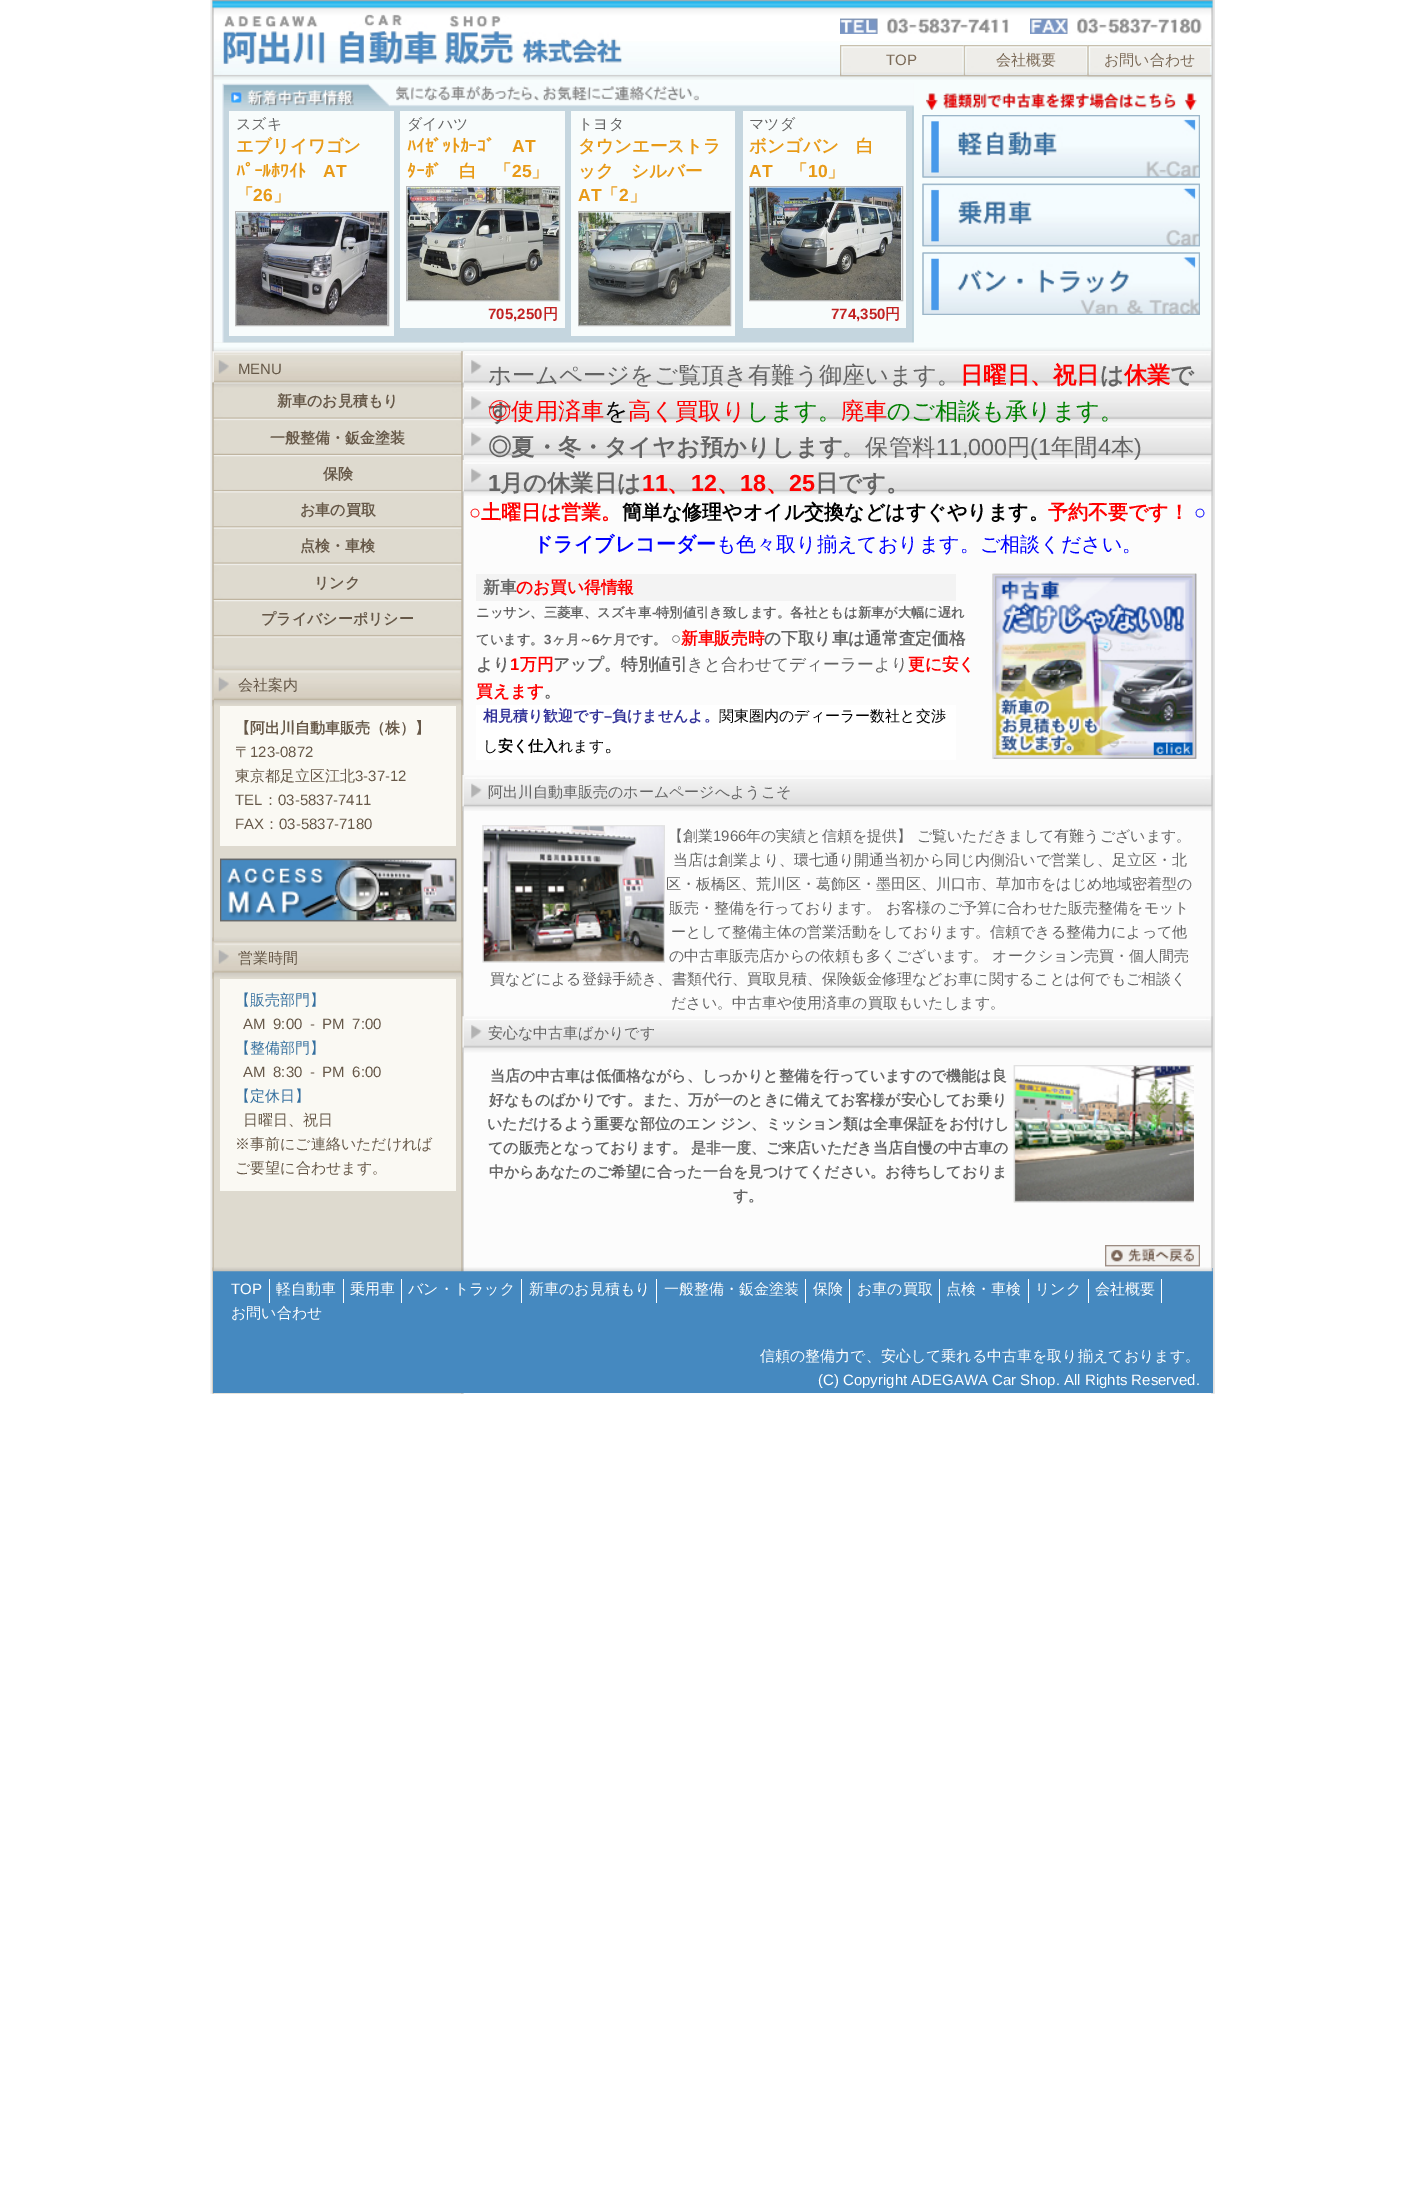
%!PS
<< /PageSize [1424 2199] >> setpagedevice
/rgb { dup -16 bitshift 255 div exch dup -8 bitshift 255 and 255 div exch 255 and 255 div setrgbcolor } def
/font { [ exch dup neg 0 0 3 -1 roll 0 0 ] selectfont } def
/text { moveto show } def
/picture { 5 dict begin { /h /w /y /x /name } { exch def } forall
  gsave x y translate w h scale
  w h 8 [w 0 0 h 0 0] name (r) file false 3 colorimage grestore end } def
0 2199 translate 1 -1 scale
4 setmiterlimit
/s1 { /LiberationSans-Regular 15 font 16#7B6A57 rgb } def
/s2 { /WenQuanYiZenHei-Medium 15 font 16#7B6A57 rgb } def
/s3 { /WenQuanYiZenHei-Medium 15 font 16#646464 rgb } def
/s4 { /WenQuanYiZenHei-Bold 17.5 font 16#E89A17 rgb } def
/s5 { /IPAPGothic-Bold 17.5 font 16#E89A17 rgb } def
/s6 { /LiberationSans-Bold 17.5 font 16#E89A17 rgb } def
/s7 { /LiberationSans-Bold 15 font 16#C12222 rgb } def
/s8 { /WenQuanYiZenHei-Bold 15 font 16#C12222 rgb } def
/s9 { /LiberationSans-Regular 15 font 16#665848 rgb } def
/s10 { /WenQuanYiZenHei-Bold 15 font 16#665848 rgb } def
/s11 { /WenQuanYiZenHei-Medium 15 font 16#665848 rgb } def
/s12 { /WenQuanYiZenHei-Medium 15 font 16#35709F rgb } def
/s13 { /WenQuanYiZenHei-Medium 23.3 font 16#646464 rgb } def
/s14 { /WenQuanYiZenHei-Bold 23.3 font 16#FF0000 rgb } def
/s15 { /WenQuanYiZenHei-Bold 23.3 font 16#646464 rgb } def
/s16 { /WenQuanYiZenHei-Medium 23.3 font 16#FF0000 rgb } def
/s17 { /WenQuanYiZenHei-Medium 23.3 font 16#000000 rgb } def
/s18 { /WenQuanYiZenHei-Medium 23.3 font 16#008000 rgb } def
/s19 { /LiberationSans-Regular 23.3 font 16#646464 rgb } def
/s20 { /LiberationSans-Bold 23.3 font 16#646464 rgb } def
/s21 { /LiberationSans-Bold 23.3 font 16#FF0000 rgb } def
/s22 { /LiberationSans-Bold 20 font 16#FF0000 rgb } def
/s23 { /WenQuanYiZenHei-Bold 20 font 16#FF0000 rgb } def
/s24 { /WenQuanYiZenHei-Bold 20 font 16#000000 rgb } def
/s25 { /LiberationSans-Regular 20 font 16#0000FF rgb } def
/s26 { /WenQuanYiZenHei-Bold 20 font 16#0000FF rgb } def
/s27 { /WenQuanYiZenHei-Medium 20 font 16#0000FF rgb } def
/s28 { /WenQuanYiZenHei-Bold 16.7 font 16#646464 rgb } def
/s29 { /WenQuanYiZenHei-Bold 16.7 font 16#FF0000 rgb } def
/s30 { /WenQuanYiZenHei-Bold 13.3 font 16#646464 rgb } def
/s31 { /LiberationSans-Bold 13.3 font 16#646464 rgb } def
/s32 { /LiberationSans-Bold 16.7 font 16#646464 rgb } def
/s33 { /LiberationSans-Bold 16.7 font 16#FF0000 rgb } def
/s34 { /WenQuanYiZenHei-Medium 16.7 font 16#646464 rgb } def
/s35 { /WenQuanYiZenHei-Bold 15 font 16#333399 rgb } def
/s36 { /LiberationSans-Bold 15 font 16#333399 rgb } def
/s37 { /WenQuanYiZenHei-Medium 15 font 16#000000 rgb } def
/s38 { /WenQuanYiZenHei-Bold 15 font 16#000000 rgb } def
/s39 { /WenQuanYiZenHei-Medium 20 font 16#000000 rgb } def
/s40 { /LiberationSans-Regular 15 font 16#646464 rgb } def
/s41 { /WenQuanYiZenHei-Bold 15 font 16#646464 rgb } def
/s42 { /LiberationSans-Regular 15 font 16#FFFFFF rgb } def
/s43 { /WenQuanYiZenHei-Medium 15 font 16#FFFFFF rgb } def
16#FFFFFF rgb
0 0 1424 2199 rectfill
(pic1.raw) 210 0 1005 1394 picture
(pic2.raw) 212 0 1001 343 picture
(pic3.raw) 212 0 1001 80 picture
(pic4.raw) 223 14 399 50 picture
(pic5.raw) 840 18 169 16 picture
(pic6.raw) 840 18 167 16 picture
(pic7.raw) 1030 18 172 16 picture
(pic8.raw) 1030 18 172 16 picture
(pic9.raw) 840 45 124 32 picture
s1
(TOP) 886 65 text
(pic10.raw) 963 45 125 32 picture
s2
(会社概要) 996 65 text
(pic11.raw) 1087 45 125 32 picture
(pic12.raw) 1087 45 125 32 picture
(お問い合わせ) 1104 65 text
(pic30.raw) 212 342 1001 10 picture
(pic13.raw) 213 83 701 260 picture
16#F8FCFC rgb
229 111 165 225 rectfill
s3
(スズキ) 236 129 text
s4
(エブリイワゴン) 236 152 text
s5
(ﾊﾟｰﾙﾎﾜｲﾄ) 236 177 text
s6
(AT) 323 177 text
s4
(「) 236 201 text
s6
(26) 253 201 text
s4
(」) 273 201 text
16#B9B9B9 rgb
235.5 211.5 153 114 rectstroke
(pic14.raw) 236 212 152 113 picture
(pic15.raw) 236 212 152 113 picture
16#F8FCFC rgb
400 111 165 217 rectfill
s3
(ダイハツ) 407 129 text
s5
(ﾊｲｾﾞｯﾄｶｰｺﾞ) 407 152 text
s6
(AT) 512 152 text
s5
(ﾀｰﾎﾞ) 407 177 text
s4
(白　「) 459 177 text
s6
(25) 512 177 text
s4
(」) 531 177 text
16#B9B9B9 rgb
406.5 186.5 153 114 rectstroke
(pic16.raw) 407 187 152 113 picture
(pic17.raw) 407 187 152 113 picture
s7
(705,250) 488 319 text
s8
(円) 543 319 text
16#F8FCFC rgb
571 111 164 225 rectfill
s3
(トヨタ) 578 129 text
s4
(タウンエーストラ) 578 152 text
(ック　シルバー) 578 177 text
s6
(AT) 578 201 text
s4
(「) 601 201 text
s6
(2) 619 201 text
s4
(」) 629 201 text
16#B9B9B9 rgb
578.5 211.5 152 114 rectstroke
(pic18.raw) 578 212 152 113 picture
(pic19.raw) 578 212 152 113 picture
16#F8FCFC rgb
743 111 163 217 rectfill
s3
(マツダ) 749 129 text
s4
(ボンゴバン　白) 749 152 text
s6
(AT) 749 177 text
s4
(「) 790 177 text
s6
(10) 808 177 text
s4
(」) 827 177 text
16#B9B9B9 rgb
749.5 186.5 153 114 rectstroke
(pic20.raw) 750 187 152 113 picture
(pic21.raw) 750 187 152 113 picture
s7
(774,350) 831 319 text
s8
(円) 885 319 text
(pic22.raw) 926 93 271 17 picture
(pic23.raw) 926 93 271 10 picture
(pic24.raw) 922 115 278 63 picture
(pic25.raw) 922 115 278 63 picture
(pic26.raw) 922 183 278 64 picture
(pic27.raw) 922 183 278 64 picture
(pic28.raw) 922 252 278 63 picture
(pic29.raw) 922 252 278 63 picture
(pic44.raw) 462 351 751 37 picture
(pic31.raw) 212 351 251 32 picture
s9
(MENU) 238 374 text
(pic32.raw) 212 636 251 29 picture
(pic45.raw) 462 387 751 37 picture
(pic33.raw) 212 382 251 37 picture
s10
(新車のお見積もり) 277 406 text
(pic46.raw) 462 423 751 37 picture
(pic34.raw) 212 418 251 37 picture
(一般整備・鈑金塗装) 270 443 text
(pic47.raw) 462 460 751 36 picture
(pic35.raw) 212 455 251 37 picture
(保険) 323 479 text
(pic36.raw) 212 491 251 37 picture
(お車の買取) 300 515 text
(pic37.raw) 212 527 251 37 picture
(点検・車検) 300 551 text
(pic38.raw) 212 563 251 37 picture
(リンク) 314 588 text
(pic39.raw) 212 600 251 37 picture
(プライバシーポリシー) 261 624 text
(pic40.raw) 212 665 251 42 picture
s11
(会社案内) 238 690 text
16#FAF9F3 rgb
220 706 236 140 rectfill
s10
(【阿出川自動車販売（株）】) 235 733 text
s11
(〒) 235 757 text
s9
(123-0872) 250 757 text
s11
(東京都足立区江北) 235 781 text
s9
(3-37-12) 355 781 text
(TEL) 235 805 text
s11
(：) 263 805 text
s9
(03-5837-7411) 278 805 text
(FAX) 235 829 text
s11
(：) 264 829 text
s9
(03-5837-7180) 279 829 text
(pic41.raw) 220 858 237 64 picture
(pic42.raw) 220 858 237 64 picture
(pic43.raw) 212 937 251 42 picture
s11
(営業時間) 238 963 text
16#FAF9F3 rgb
220 979 236 212 rectfill
s12
(【販売部門】) 235 1005 text
s9
(AM 9:00 - PM 7:00) 243 1029 text
s12
(【整備部門】) 235 1053 text
s9
(AM 8:30 - PM 6:00) 243 1077 text
s12
(【定休日】) 235 1101 text
s11
(日曜日、祝日) 243 1125 text
(※事前にご連絡いただければ) 235 1149 text
(ご要望に合わせます。) 235 1173 text
s13
(ホームページをご覧頂き有難う御座います。) 488 383 text
s14
(日曜日、祝日) 960 383 text
s15
(は) 1100 383 text
s14
(休業) 1124 383 text
s15
(で) 1170 383 text
(す) 488 420 text
s16
(◎使用済車) 488 419 text
s17
(を) 604 419 text
s16
(高く買取り) 628 419 text
s18
(します。) 746 419 text
s16
(廃車) 841 419 text
s18
(のご相談も承ります。) 887 419 text
s15
(◎夏・冬・タイヤお預かりします) 488 455 text
s13
(。保管料) 842 455 text
s19
(11,000) 936 455 text
s13
(円) 1007 455 text
s19
(\(1) 1030 455 text
s13
(年間) 1051 455 text
s19
(4) 1098 455 text
s13
(本) 1111 455 text
s19
(\)) 1134 455 text
s20
(1) 488 491 text
s15
(月の休業日は) 500 491 text
s21
(11) 642 491 text
s14
(、) 667 491 text
s21
(12) 691 491 text
s14
(、) 717 491 text
s21
(18) 740 491 text
s14
(、) 766 491 text
s21
(25) 789 491 text
s15
(日です。) 815 491 text
s22
(○) 469 519 text
s23
(土曜日は営業。) 481 519 text
s24
(簡単な修理やオイル交換などはすぐやります。) 622 519 text
s23
(予約不要です！) 1048 519 text
s25
(○) 1194 519 text
s26
(ドライブレコーダー) 533 551 text
s27
(も色々取り揃えております。ご相談ください。) 716 551 text
16#F3F3F3 rgb
476 574 480 27 rectfill
s28
(新車) 483 593 text
s29
(のお買い得情報) 516 593 text
s30
(ニッサン、三菱車、スズキ車) 476 617 text
s31
(-) 652 617 text
s30
(特別値引き致します。各社ともは新車が大幅に遅れ) 656 617 text
(ています。) 476 644 text
s31
(3) 544 644 text
s30
(ヶ月～) 552 644 text
s31
(6) 592 644 text
s30
(ケ月です。) 599 644 text
s32
(○) 671 644 text
s29
(新車販売時) 681 644 text
s28
(の下取り車は通常査定価格) 764 644 text
(より) 476 670 text
s33
(1) 510 670 text
s29
(万円) 520 670 text
s28
(アップ。特別値引) 553 670 text
s34
(きと合わせてディーラーより) 687 670 text
s29
(更に安く) 908 670 text
(買えます) 476 697 text
s28
(。) 544 697 text
16#FFFFFF rgb
476 705 480 55 rectfill
s35
(相見積り歓迎です) 483 721 text
s36
(–) 604 721 text
s35
(負けませんよ。) 612 721 text
s37
(関東圏内のディーラー数社と交渉) 719 721 text
(し) 483 751 text
s38
(安く仕入) 498 751 text
s37
(れます) 558 751 text
s39
(。) 604 751 text
(pic48.raw) 992 573 205 186 picture
(pic49.raw) 992 573 205 186 picture
(pic50.raw) 462 775 751 36 picture
s3
(阿出川自動車販売のホームページへようこそ) 488 797 text
(pic51.raw) 482 825 183 138 picture
(pic52.raw) 482 825 183 138 picture
(【創業) 668 841 text
s40
(1966) 713 841 text
s3
(年の実績と信頼を提供】 ご覧いただきまして有難うございます。) 746 841 text
(当店は創業より、環七通り開通当初から同じ内側沿いで営業し、足立区・北) 673 865 text
(区・板橋区、荒川区・葛飾区・墨田区、川口市、草加市をはじめ地域密着型の) 666 889 text
(販売・整備を行っております。 お客様のご予算に合わせた販売整備をモット) 669 913 text
(ーとして整備主体の営業活動をしております。信頼できる整備力によって他) 671 937 text
(の中古車販売店からの依頼も多くございます。 オークション売買・個人間売) 669 961 text
(買などによる登録手続き、書類代行、買取見積、保険鈑金修理などお車に関することは何でもご相談く) 490 984 text
(ださい。中古車や使用済車の買取もいたします。) 671 1008 text
(pic53.raw) 462 1016 751 37 picture
(安心な中古車ばかりです) 488 1038 text
s41
(当店の中古車は低価格ながら、しっかりと整備を行っていますので機能は良) 490 1081 text
(pic54.raw) 1013 1065 181 138 picture
(pic55.raw) 1013 1065 181 138 picture
(好なものばかりです。また、万が一のときに備えてお客様が安心してお乗り) 489 1105 text
(いただけるよう重要な部位のエン ジン、ミッション類は全車保証をお付けし) 487 1129 text
(ての販売となっております。 是非一度、ご来店いただき当店自慢の中古車の) 488 1153 text
(中からあなたのご希望に合った一台を見つけてください。お待ちしておりま) 489 1177 text
(す。) 733 1201 text
(pic56.raw) 1105 1245 95 21 picture
16#D1CAC7 rgb
1105 1266 95 1 rectfill
16#4589C0 rgb
213 1268 1000 125 rectfill
(pic57.raw) 212 1267 1001 5 picture
16#FFFFFF rgb
269 1279 1 24 rectfill
s42
(TOP) 231 1294 text
343 1279 1 24 rectfill
s43
(軽自動車) 276 1294 text
401 1279 1 24 rectfill
(乗用車) 350 1294 text
521 1279 1 24 rectfill
(バン・トラック) 408 1294 text
656 1279 1 24 rectfill
(新車のお見積もり) 529 1294 text
805 1279 1 24 rectfill
(一般整備・鈑金塗装) 664 1294 text
849 1279 1 24 rectfill
(保険) 813 1294 text
939 1279 1 24 rectfill
(お車の買取) 857 1294 text
1028 1279 1 24 rectfill
(点検・車検) 946 1294 text
1088 1279 1 24 rectfill
(リンク) 1035 1294 text
1161 1279 1 24 rectfill
(会社概要) 1095 1294 text
(お問い合わせ) 231 1318 text
(信頼の整備力で、安心して乗れる中古車を取り揃えております。) 760 1361 text
s42
(\(C\) Copyright ADEGAWA Car Shop. All Rights Reserved.) 818 1385 text
showpage
